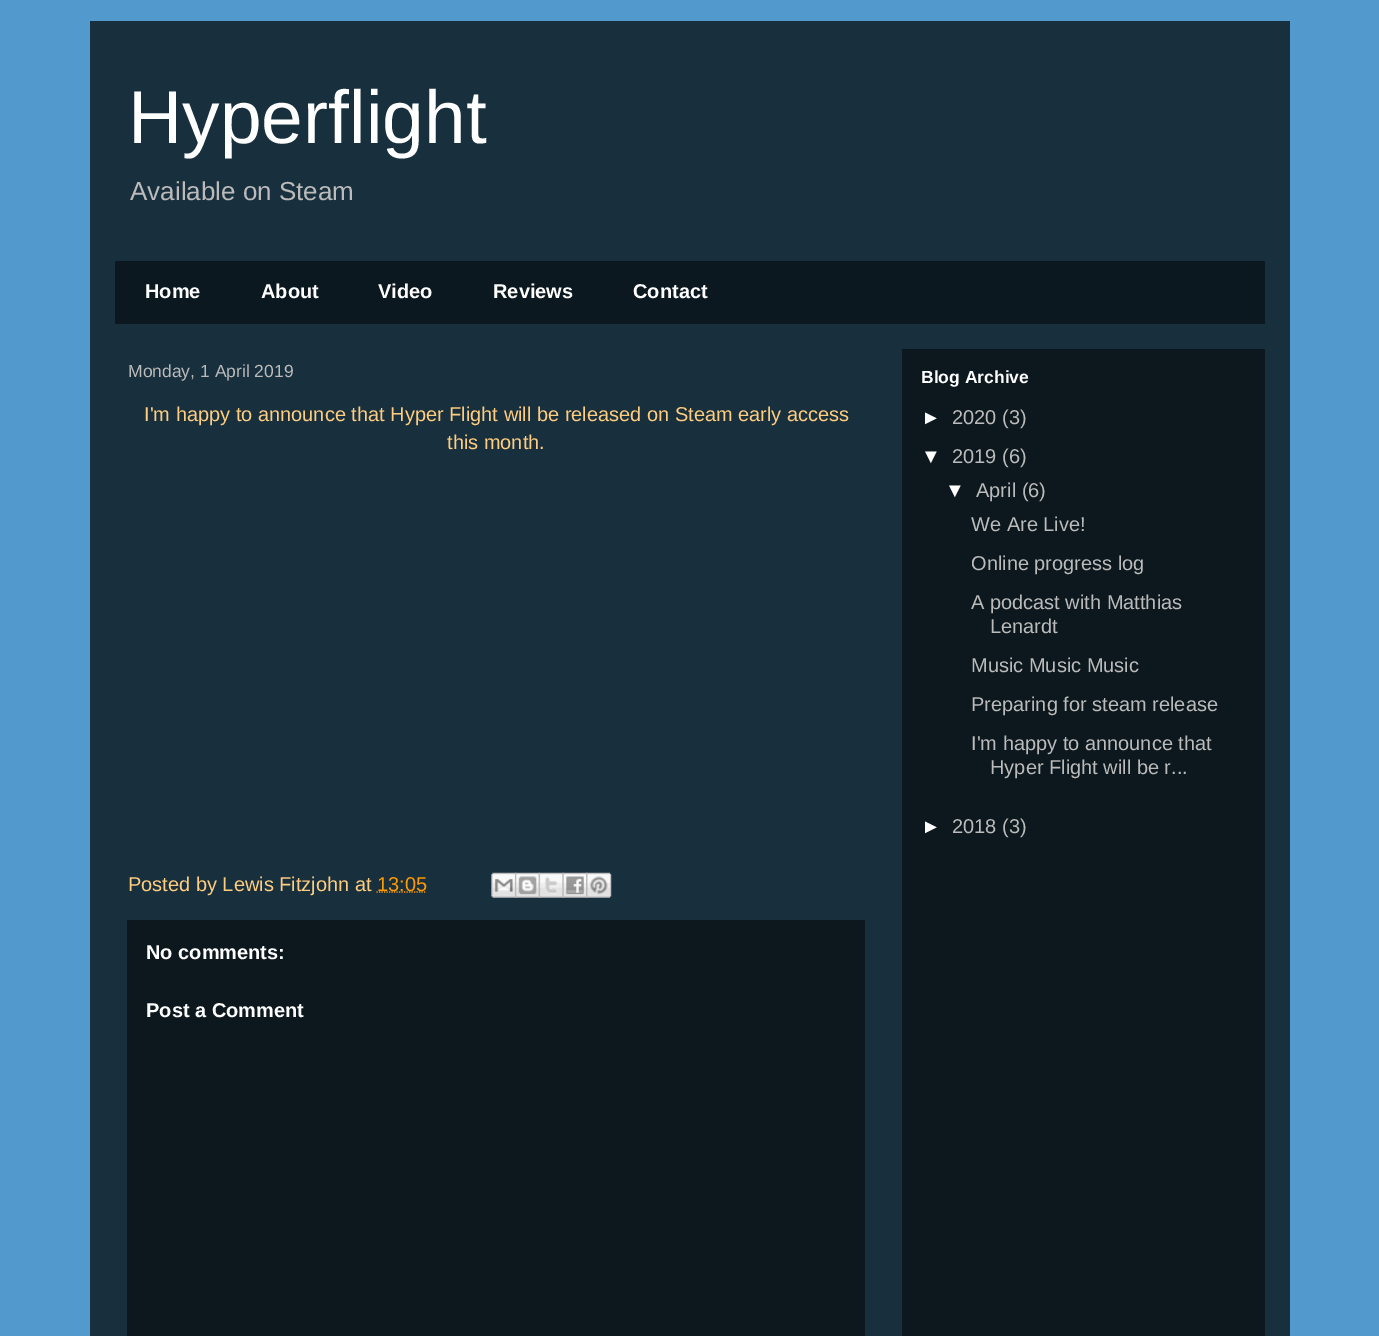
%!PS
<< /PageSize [1379 1336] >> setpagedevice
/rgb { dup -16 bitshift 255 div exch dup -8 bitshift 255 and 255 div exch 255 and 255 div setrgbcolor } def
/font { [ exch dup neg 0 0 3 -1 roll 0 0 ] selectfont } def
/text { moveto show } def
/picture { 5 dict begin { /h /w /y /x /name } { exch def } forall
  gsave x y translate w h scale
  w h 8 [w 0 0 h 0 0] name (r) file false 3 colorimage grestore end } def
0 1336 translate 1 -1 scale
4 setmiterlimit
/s1 { /LiberationSans-Regular 75 font 16#FFFFFF rgb } def
/s2 { /LiberationSans-Regular 26 font 16#BBBBBB rgb } def
/s3 { /LiberationSans-Bold 20 font 16#FFFFFF rgb } def
/s4 { /LiberationSans-Regular 17.5 font 16#BBBBBB rgb } def
/s5 { /LiberationSans-Regular 20 font 16#FFCD7F rgb } def
/s6 { /LiberationSans-Regular 20 font 16#FF9B00 rgb } def
/s7 { /LiberationSans-Bold 17.5 font 16#FFFFFF rgb } def
/s8 { /LiberationSans-Regular 20 font 16#FFFFFF rgb } def
/s9 { /LiberationSans-Regular 20 font 16#BBBBBB rgb } def
16#529ACD rgb
0 0 1379 1336 rectfill
16#182F3D rgb
90 21 1200 1315 rectfill
s1
(Hyperflight) 128 143 text
s2
(Available on Steam) 130 200 text
16#0C181F rgb
115 261 1150 63 rectfill
s3
(Home) 145 298 text
(About) 261 298 text
(Video) 378 298 text
(Reviews) 493 298 text
(Contact) 633 298 text
16#0C181E rgb
902 349 363 987 rectfill
s4
(Monday, 1 April 2019) 128 377 text
s5
(I'm happy to announce that Hyper Flight will be released on Steam early access) 144 421 text
(this month.) 447 449 text
(Posted by Lewis Fitzjohn at) 128 891 text
16#FF9B00 rgb
1.2 setlinewidth
[1.25 1.25] 0 setdash
376.5 892 moveto 426.5 892 lineto stroke
(13:05) 377 891 text
(pic1.raw) 491 872 26 26 picture
(pic2.raw) 515 872 25 26 picture
(pic3.raw) 538 872 26 26 picture
(pic4.raw) 562 872 26 26 picture
(pic5.raw) 586 872 26 26 picture
16#0C181E rgb
127 920 738 416 rectfill
s3
(No comments:) 146 959 text
(Post a Comment) 146 1017 text
s7
(Blog Archive) 921 383 text
s8
(►) 921 424 text
s9
(2020 \(3\)) 952 424 text
s8
(▼) 921 463 text
s9
(2019 \(6\)) 952 463 text
s8
(▼) 945 497 text
s9
(April \(6\)) 976 497 text
(We Are Live!) 971 531 text
(Online progress log) 971 570 text
(A podcast with Matthias) 971 609 text
(Lenardt) 990 633 text
(Music Music Music) 971 672 text
(Preparing for steam release) 971 711 text
(I'm happy to announce that) 971 750 text
(Hyper Flight will be r...) 990 774 text
s8
(►) 921 833 text
s9
(2018 \(3\)) 952 833 text
showpage
